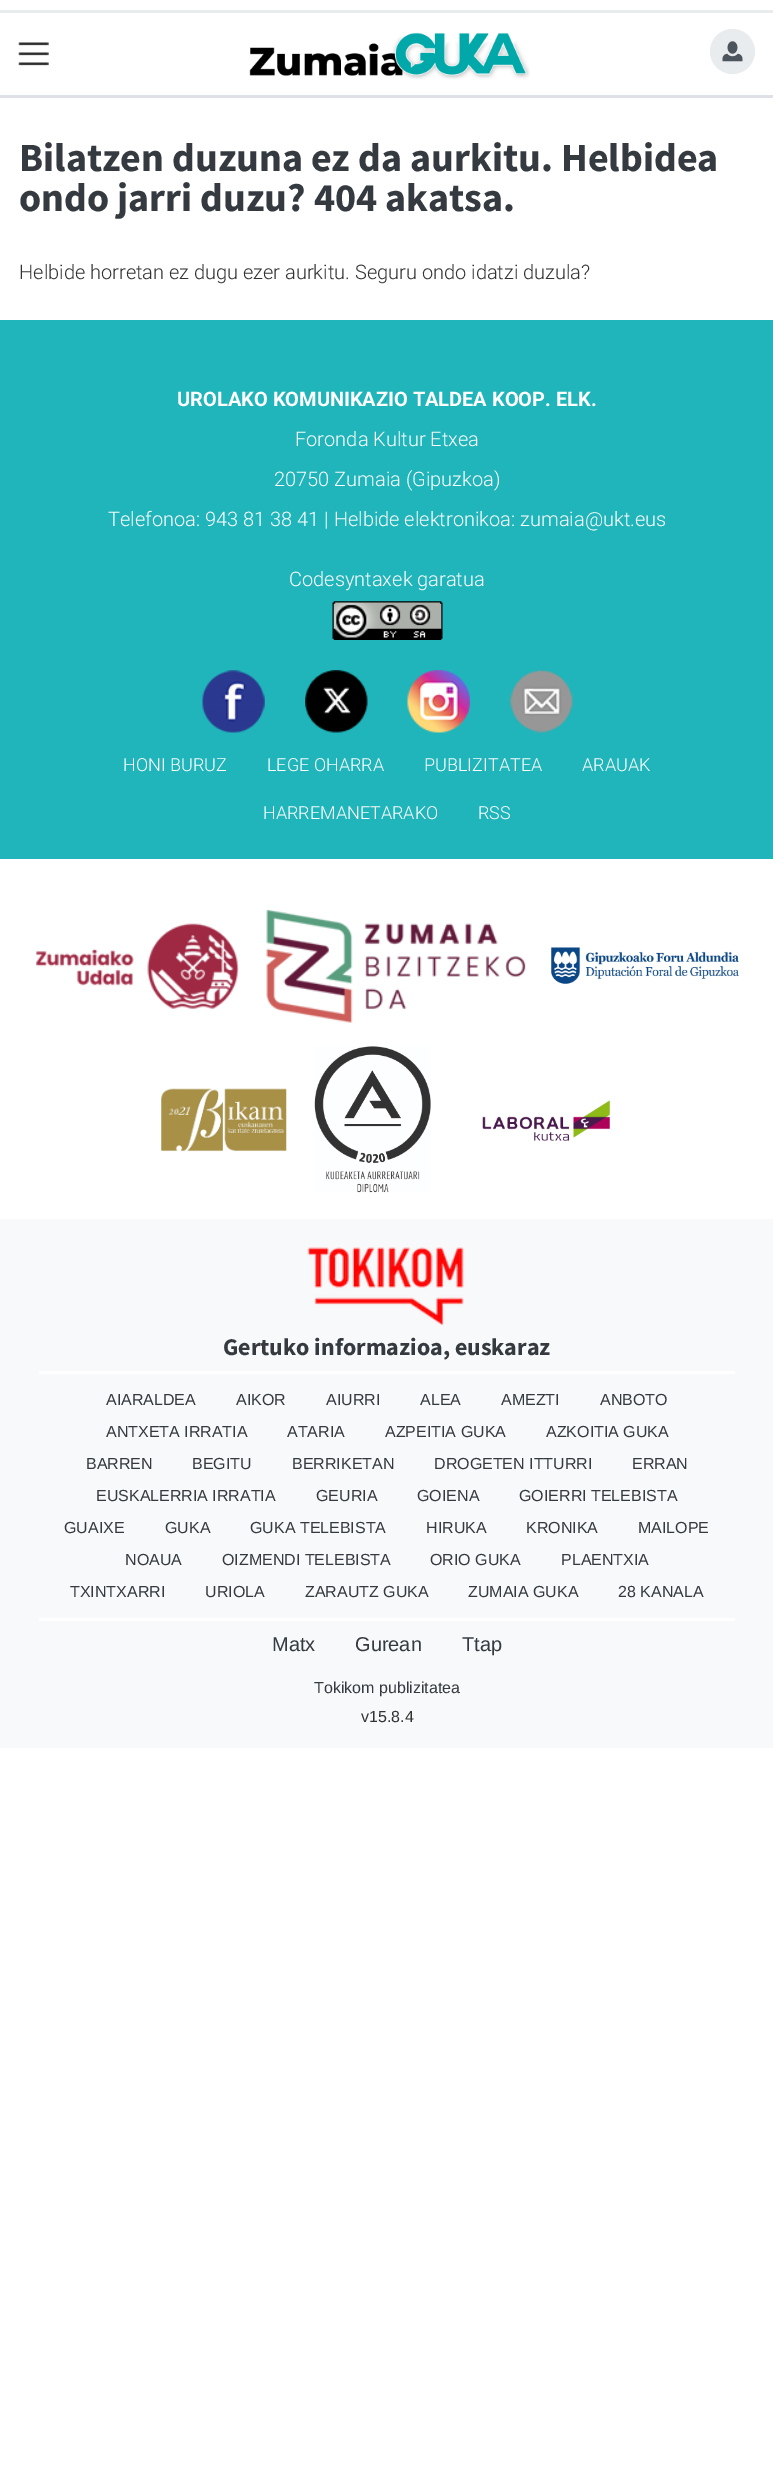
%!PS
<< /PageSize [773 2478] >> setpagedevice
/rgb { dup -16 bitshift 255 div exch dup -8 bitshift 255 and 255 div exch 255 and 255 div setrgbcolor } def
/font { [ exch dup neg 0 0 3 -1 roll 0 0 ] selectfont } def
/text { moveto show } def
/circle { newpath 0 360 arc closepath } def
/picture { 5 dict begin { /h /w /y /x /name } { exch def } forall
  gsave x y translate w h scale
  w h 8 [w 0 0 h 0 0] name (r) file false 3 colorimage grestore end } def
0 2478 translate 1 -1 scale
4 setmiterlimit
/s1 { /SourceSansPro-Bold 40 font 16#343A40 rgb } def
/s2 { /Roboto-Light 20 font 16#333333 rgb } def
/s3 { /Roboto-Bold 20 font 16#FFFFFF rgb } def
/s4 { /Roboto-Light 20 font 16#FFFFFF rgb } def
/s5 { /Roboto-Light 18 font 16#FFFFFF rgb } def
/s6 { /SourceSansPro-Bold 24 font 16#343A40 rgb } def
/s7 { /LiberationSans-Regular 16 font 16#343A40 rgb } def
/s8 { /LiberationSans-Regular 20 font 16#343A40 rgb } def
/s9 { /LiberationSans-Regular 16 font 16#333333 rgb } def
16#FFFFFF rgb
0 0 773 2478 rectfill
16#E9ECEF rgb
0 10 773 3 rectfill
(pic1.raw) 18 42 31 24 picture
(pic2.raw) 249 32 281 48 picture
732.5 51.5 22.5 circle fill
(pic3.raw) 722 41 21 21 picture
16#DEE2E6 rgb
0 95 773 3 rectfill
s1
(Bilatzen duzuna ez da aurkitu. Helbidea) 19 171 text
(ondo jarri duzu? 404 akatsa.) 19 211 text
s2
(Helbide horretan ez dugu ezer aurkitu. Seguru ondo idatzi duzula?) 19 279 text
16#20B5BA rgb
0 320 773 539 rectfill
s3
(UROLAKO KOMUNIKAZIO TALDEA KOOP. ELK.) 177 406 text
s4
(Foronda Kultur Etxea) 295 446 text
(20750 Zumaia \(Gipuzkoa\)) 274 486 text
(Telefonoa: 943 81 38 41 | Helbide elektronikoa: zumaia@ukt.eus) 108 526 text
(Codesyntaxek garatua) 289 586 text
(pic4.raw) 332 601 111 39 picture
(pic5.raw) 202 670 63 63 picture
(pic6.raw) 305 670 63 63 picture
(pic7.raw) 407 670 63 63 picture
(pic8.raw) 510 670 63 63 picture
s5
(HONI BURUZ) 123 771 text
(LEGE OHARRA) 267 771 text
(PUBLIZITATEA) 424 771 text
(ARAUAK) 582 771 text
(HARREMANETARAKO) 263 819 text
(RSS) 478 819 text
(pic9.raw) 36 909 490 114 picture
(pic10.raw) 551 947 188 37 picture
(pic11.raw) 161 1088 126 64 picture
(pic12.raw) 314 1046 117 147 picture
(pic13.raw) 482 1100 128 41 picture
16#F8F9FA rgb
0 1219 773 529 rectfill
(pic14.raw) 307 1247 157 79 picture
s6
(Gertuko informazioa, euskaraz) 223 1355 text
16#FFFFFF rgb
39 1371 696 3 rectfill
s7
(AIARALDEA) 106 1405 text
(AIKOR) 236 1405 text
(AIURRI) 326 1405 text
(ALEA) 420 1405 text
(AMEZTI) 501 1405 text
(ANBOTO) 600 1405 text
(ANTXETA IRRATIA) 106 1437 text
(ATARIA) 287 1437 text
(AZPEITIA GUKA) 385 1437 text
(AZKOITIA GUKA) 546 1437 text
(BARREN) 86 1469 text
(BEGITU) 192 1469 text
(BERRIKETAN) 292 1469 text
(DROGETEN ITTURRI) 434 1469 text
(ERRAN) 632 1469 text
(EUSKALERRIA IRRATIA) 96 1501 text
(GEURIA) 316 1501 text
(GOIENA) 417 1501 text
(GOIERRI TELEBISTA) 519 1501 text
(GUAIXE) 64 1533 text
(GUKA) 165 1533 text
(GUKA TELEBISTA) 250 1533 text
(HIRUKA) 426 1533 text
(KRONIKA) 526 1533 text
(MAILOPE) 638 1533 text
(NOAUA) 125 1565 text
(OIZMENDI TELEBISTA) 222 1565 text
(ORIO GUKA) 430 1565 text
(PLAENTXIA) 561 1565 text
(TXINTXARRI) 70 1597 text
(URIOLA) 205 1597 text
(ZARAUTZ GUKA) 305 1597 text
(ZUMAIA GUKA) 468 1597 text
(28 KANALA) 618 1597 text
16#FFFFFF rgb
39 1618 696 3 rectfill
s8
(Matx) 272 1651 text
(Gurean) 355 1651 text
(Ttap) 462 1651 text
s7
(Tokikom publizitatea) 314 1693 text
s9
(v15.8.4) 361 1722 text
showpage
